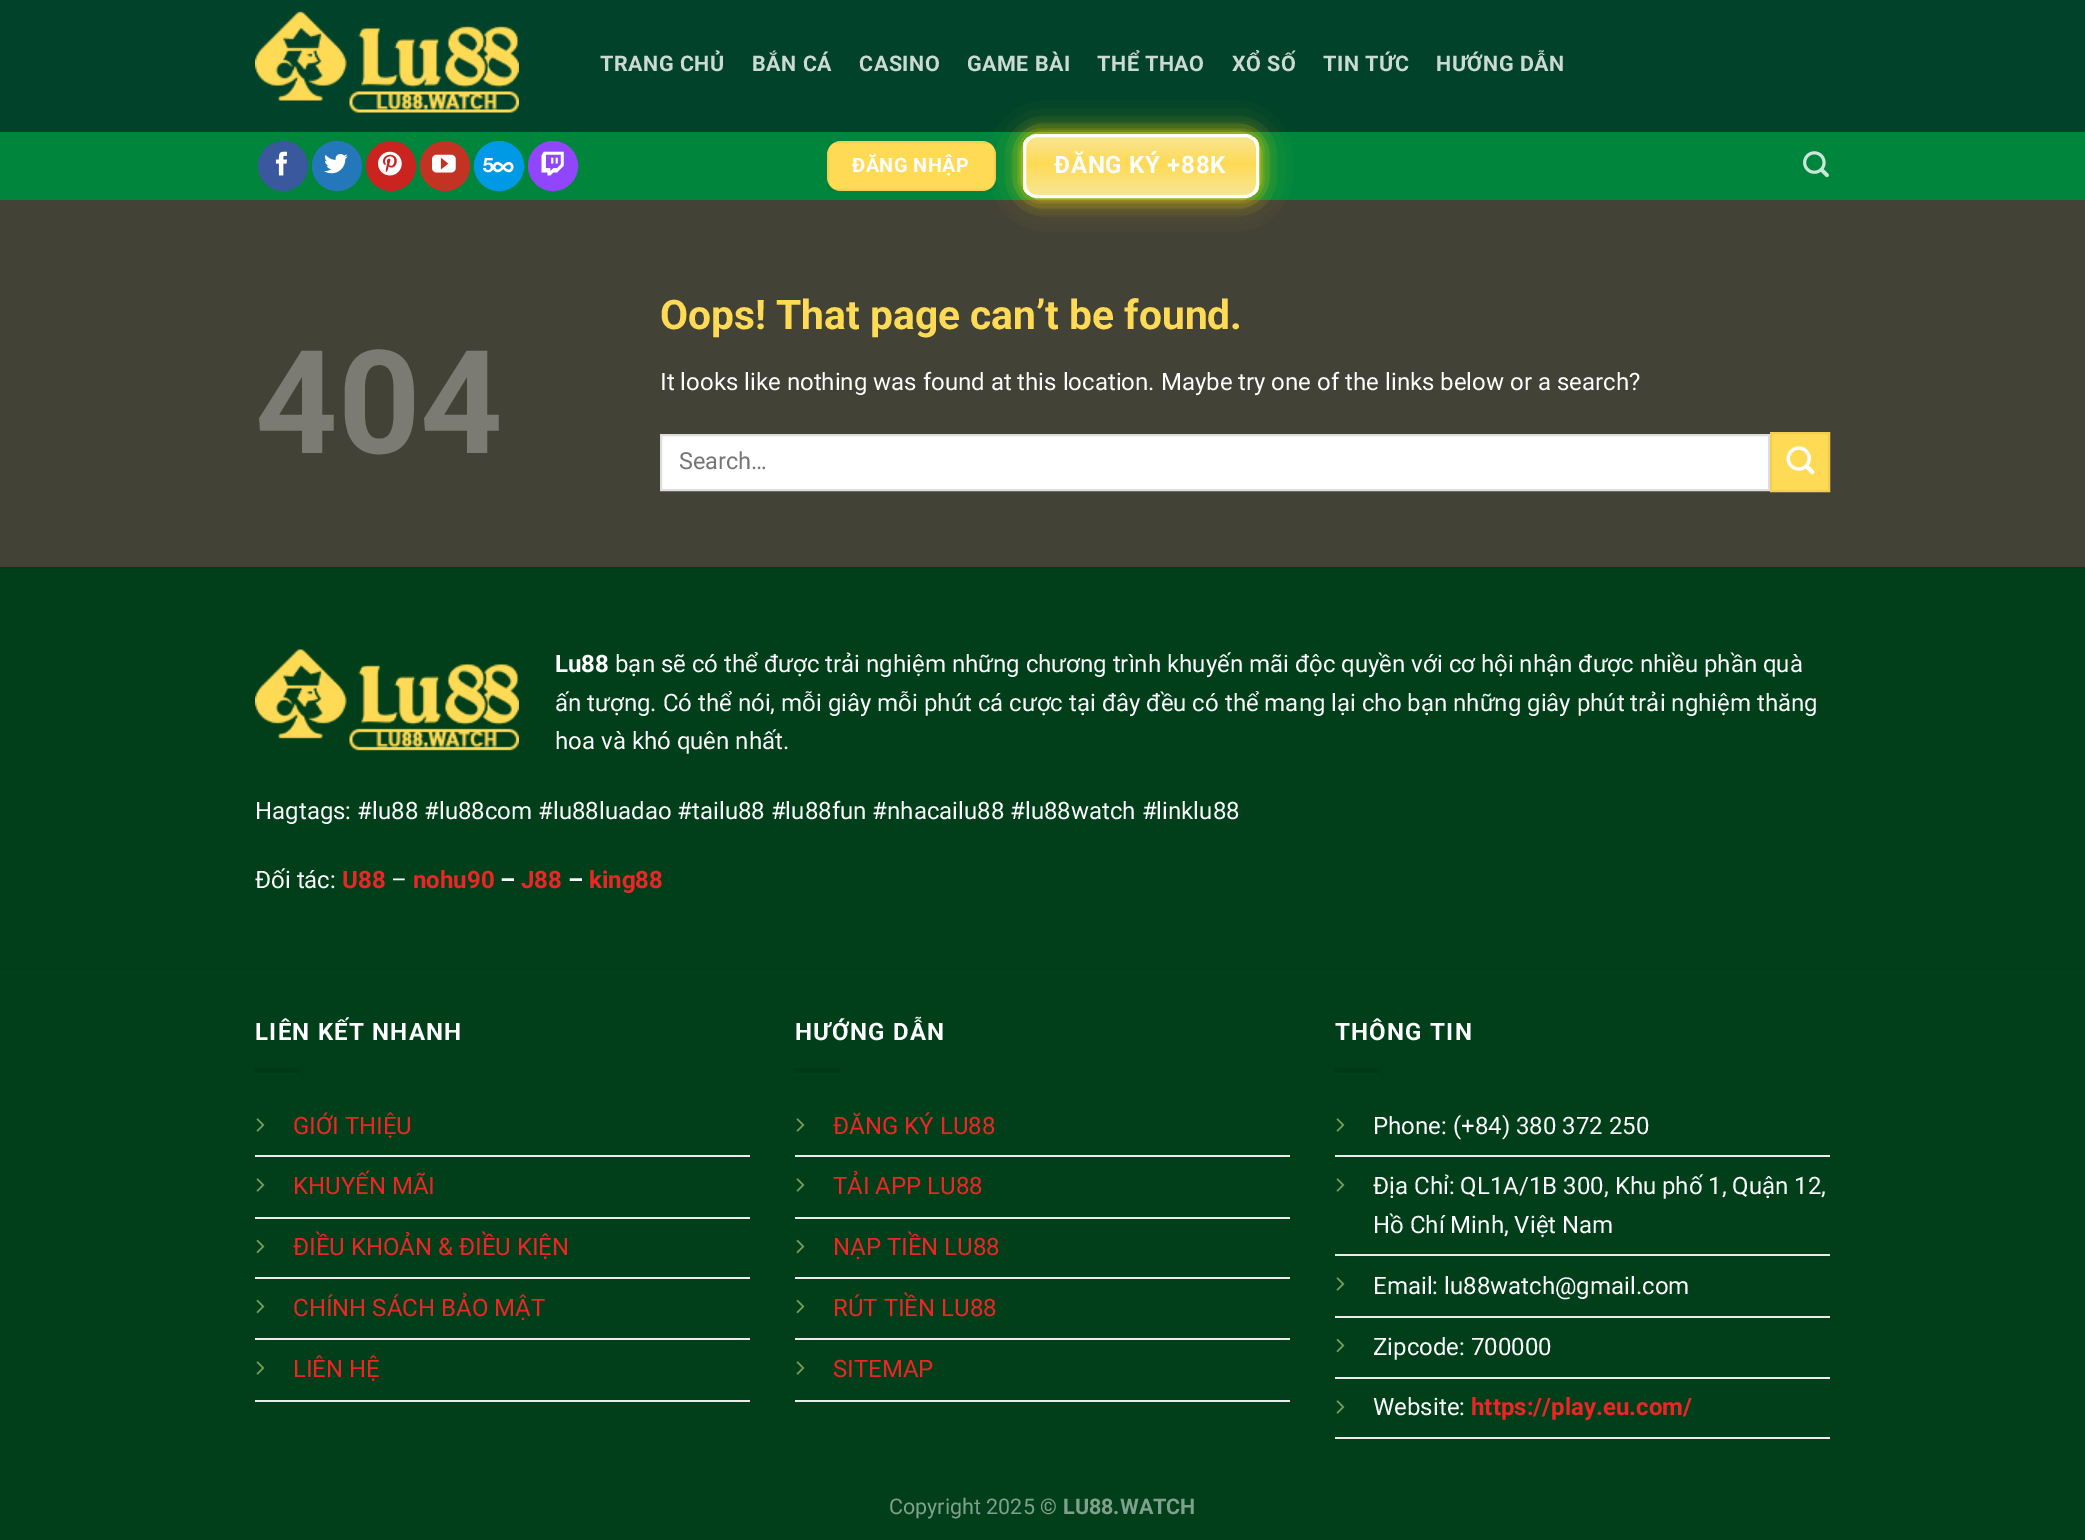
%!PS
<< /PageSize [2085 1540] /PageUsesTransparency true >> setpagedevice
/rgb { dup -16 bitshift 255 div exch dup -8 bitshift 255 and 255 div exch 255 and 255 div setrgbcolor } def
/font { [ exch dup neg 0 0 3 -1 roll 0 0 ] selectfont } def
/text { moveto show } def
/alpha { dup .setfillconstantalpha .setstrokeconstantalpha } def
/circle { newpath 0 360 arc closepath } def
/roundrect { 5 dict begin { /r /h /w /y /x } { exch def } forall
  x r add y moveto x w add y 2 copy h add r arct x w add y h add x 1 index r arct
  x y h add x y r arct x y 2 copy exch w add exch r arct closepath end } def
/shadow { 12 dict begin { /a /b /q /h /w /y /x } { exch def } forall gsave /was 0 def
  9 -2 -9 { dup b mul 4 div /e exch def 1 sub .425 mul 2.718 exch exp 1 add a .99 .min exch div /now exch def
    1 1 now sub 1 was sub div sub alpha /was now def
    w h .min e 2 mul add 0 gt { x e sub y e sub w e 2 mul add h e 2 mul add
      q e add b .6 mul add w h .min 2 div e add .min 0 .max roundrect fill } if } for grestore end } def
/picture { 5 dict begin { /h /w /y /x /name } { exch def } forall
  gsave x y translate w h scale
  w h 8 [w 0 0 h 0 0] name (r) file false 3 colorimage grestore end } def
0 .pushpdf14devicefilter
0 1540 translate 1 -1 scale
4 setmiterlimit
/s1 { /Roboto-Bold 144 font 16#7B7B73 rgb } def
/s2 { /Roboto-Bold 40.75 font 16#FFDA55 rgb } def
/s3 { /Roboto-Regular 24 font 16#FFFFFF rgb } def
/s4 { /Roboto-Regular 23.5 font 16#757575 rgb } def
/s5 { /Roboto-Bold 24 font 16#FFFFFF rgb } def
/s6 { /Roboto-Bold 24 font 16#ED2525 rgb } def
/s7 { /Roboto-Regular 24 font 16#ED2525 rgb } def
/s8 { /Roboto-Regular 21.5 font 16#809F8C rgb } def
/s9 { /Roboto-Bold 21.5 font 16#809F8C rgb } def
16#424237 rgb
0 0 2085 1540 rectfill
16#00432A rgb
0 0 2085 132 rectfill
(pic1.raw) 255 11 264 102 picture
/Roboto-Bold 21.5 font
16#CCD9D4 rgb
600 71 moveto 0.5 0 (TRANG CHỦ) ashow
752 71 moveto 0.5 0 (BẮN CÁ) ashow
859 71 moveto 0.5 0 (CASINO) ashow
967 71 moveto 0.5 0 (GAME BÀI) ashow
1097 71 moveto 0.5 0 (THỂ THAO) ashow
1232 71 moveto 0.5 0 (XỔ SỐ) ashow
1323 71 moveto 0.5 0 (TIN TỨC) ashow
1436 71 moveto 0.5 0 (HƯỚNG DẪN) ashow
16#00863C rgb
0 132 2085 68 rectfill
16#3A589D rgb
283 166 24 circle gsave fill grestore
2 setlinewidth
stroke
(pic2.raw) 275 151 12 25 picture
16#2478BA rgb
337 166 24 circle gsave fill grestore
stroke
(pic3.raw) 324 154 24 20 picture
16#CB2320 rgb
391 166 24 circle gsave fill grestore
stroke
(pic4.raw) 378 151 24 25 picture
16#C33223 rgb
445 166 24 circle gsave fill grestore
stroke
(pic5.raw) 432 154 24 19 picture
16#0099E5 rgb
499 166 24 circle gsave fill grestore
stroke
(pic6.raw) 483 158 31 15 picture
16#9146FE rgb
553 166 24 circle gsave fill grestore
stroke
(pic7.raw) 541 151 23 25 picture
16#FFDA55 rgb
827 141 169 50 14 roundrect fill
0.05 alpha
16#000000 rgb
828 142 167 48 rectstroke
/Roboto-Bold 19.75 font
1 alpha
16#FFFFFF rgb
852 172 moveto 0.5 0 (ĐĂNG NHẬP) ashow
16#FFD700 rgb
1023 134 236 64 14 15 0.6 shadow
1023 134 236 64 14 7.5 0.8 shadow
gsave
1023 134 236 64 14 roundrect clip newpath
gsave 1023 137 moveto 1259 137 lineto 1259 195 lineto 1023 195 lineto closepath clip newpath
<< /ShadingType 2 /ColorSpace /DeviceRGB /Coords [1141 136 1141 195] /Extend [true true] /Function << /FunctionType 3 /Domain [0 1] /Functions [<< /FunctionType 2 /Domain [0 1] /C0 [0.969 0.902 0.58] /C1 [1 0.855 0.333] /N 1 >> << /FunctionType 2 /Domain [0 1] /C0 [1 0.855 0.333] /C1 [0.969 0.902 0.58] /N 1 >>] /Bounds [0.47] /Encode [0 1 0 1] >> >> shfill grestore
grestore
16#FFFFFF rgb
3 setlinewidth
1024.5 135.5 233 61 12.5 roundrect stroke
/Roboto-Bold 24 font
1054 173 moveto 0.75 0 (ĐĂNG KÝ +88K) ashow
(pic8.raw) 1803 151 26 27 picture
s1
(404) 255 453 text
s2
(Oops! That page can’t be found.) 660 329 text
s3
(It looks like nothing was found at this location. Maybe try one of the links below or a search?) 660 390 text
661 435 moveto 1769 435 lineto 1769 490 lineto 661 490 lineto closepath gsave fill grestore
16#DDDDDD rgb
2 setlinewidth
stroke
s4
(Search…) 679 469 text
16#FFDA55 rgb
1771 433 moveto 1829 433 lineto 1829 491 lineto 1771 491 lineto closepath gsave fill grestore
16#F2CF51 rgb
stroke
(pic9.raw) 1786 446 29 29 picture
16#003F19 rgb
0 569 2085 399 rectfill
16#003C18 rgb
0 567 2085 2 rectfill
(pic10.raw) 255 649 264 102 picture
s5
(Lu88) 555 672 text
s3
(bạn sẽ có thể được trải nghiệm những chương trình khuyến mãi độc quyền với cơ hội nhận được nhiều phần quà) 615 672 text
(ấn tượng. Có thể nói, mỗi giây mỗi phút cá cược tại đây đều có thể mang lại cho bạn những giây phút trải nghiệm thăng) 555 711 text
(hoa và khó quên nhất.) 555 749 text
(Hagtags: #lu88 #lu88com #lu88luadao #tailu88 #lu88fun #nhacailu88 #lu88watch #linklu88) 255 819 text
(Đối tác:) 255 888 text
s6
(U88) 342 888 text
s3
(–) 391 888 text
s6
(nohu90) 413 888 text
s5
(–) 500 888 text
s6
(J88) 521 888 text
s5
(–) 568 888 text
s6
(king88) 589 888 text
16#003F19 rgb
0 970 2085 570 rectfill
16#003C18 rgb
0 968 2085 2 rectfill
16#FFFFFF rgb
255 1040 moveto 1.25 0 (LIÊN KẾT NHANH) ashow
16#003917 rgb
255 1068 45 5 rectfill
16#ECECEC rgb
255 1155 495 2 rectfill
(pic11.raw) 256 1118 9 14 picture
s7
(GIỚI THIỆU) 293 1134 text
16#ECECEC rgb
255 1217 495 2 rectfill
(pic11.raw) 256 1178 9 14 picture
s7
(KHUYẾN MÃI) 293 1194 text
16#ECECEC rgb
255 1277 495 2 rectfill
(pic12.raw) 256 1239 9 15 picture
s7
(ĐIỀU KHOẢN & ĐIỀU KIỆN) 293 1255 text
16#ECECEC rgb
255 1338 495 2 rectfill
(pic12.raw) 256 1299 9 15 picture
s7
(CHÍNH SÁCH BẢO MẬT) 293 1316 text
16#ECECEC rgb
255 1400 495 2 rectfill
(pic11.raw) 256 1361 9 14 picture
s7
(LIÊN HỆ) 293 1377 text
/Roboto-Bold 24 font
16#FFFFFF rgb
795 1040 moveto 1.25 0 (HƯỚNG DẪN) ashow
16#003917 rgb
795 1068 45 5 rectfill
16#ECECEC rgb
795 1155 495 2 rectfill
(pic11.raw) 796 1118 9 14 picture
s7
(ĐĂNG KÝ LU88) 833 1134 text
16#ECECEC rgb
795 1217 495 2 rectfill
(pic11.raw) 796 1178 9 14 picture
s7
(TẢI APP LU88) 833 1194 text
16#ECECEC rgb
795 1277 495 2 rectfill
(pic12.raw) 796 1239 9 15 picture
s7
(NẠP TIỀN LU88) 833 1255 text
16#ECECEC rgb
795 1338 495 2 rectfill
(pic12.raw) 796 1299 9 15 picture
s7
(RÚT TIỀN LU88) 833 1316 text
16#ECECEC rgb
795 1400 495 2 rectfill
(pic11.raw) 796 1361 9 14 picture
s7
(SITEMAP) 833 1377 text
/Roboto-Bold 24 font
16#FFFFFF rgb
1335 1040 moveto 1.25 0 (THÔNG TIN) ashow
16#003917 rgb
1335 1068 45 5 rectfill
16#ECECEC rgb
1335 1155 495 2 rectfill
(pic11.raw) 1336 1118 9 14 picture
s3
(Phone: \(+84\) 380 372 250) 1373 1134 text
16#ECECEC rgb
1335 1254 495 2 rectfill
(pic11.raw) 1336 1178 9 14 picture
s3
(Địa Chỉ: QL1A/1B 300, Khu phố 1, Quận 12,) 1373 1194 text
(Hồ Chí Minh, Việt Nam) 1373 1233 text
16#ECECEC rgb
1335 1316 495 2 rectfill
(pic11.raw) 1336 1277 9 14 picture
s3
(Email: lu88watch@gmail.com) 1373 1294 text
16#ECECEC rgb
1335 1377 495 2 rectfill
(pic12.raw) 1336 1338 9 15 picture
s3
(Zipcode: 700000) 1373 1355 text
16#ECECEC rgb
1335 1437 495 2 rectfill
(pic11.raw) 1336 1400 9 14 picture
s3
(Website:) 1373 1415 text
s6
(https://play.eu.com/) 1471 1415 text
s8
(Copyright 2025 ©) 889 1514 text
s9
(LU88.WATCH) 1063 1514 text
.poppdf14devicefilter showpage
